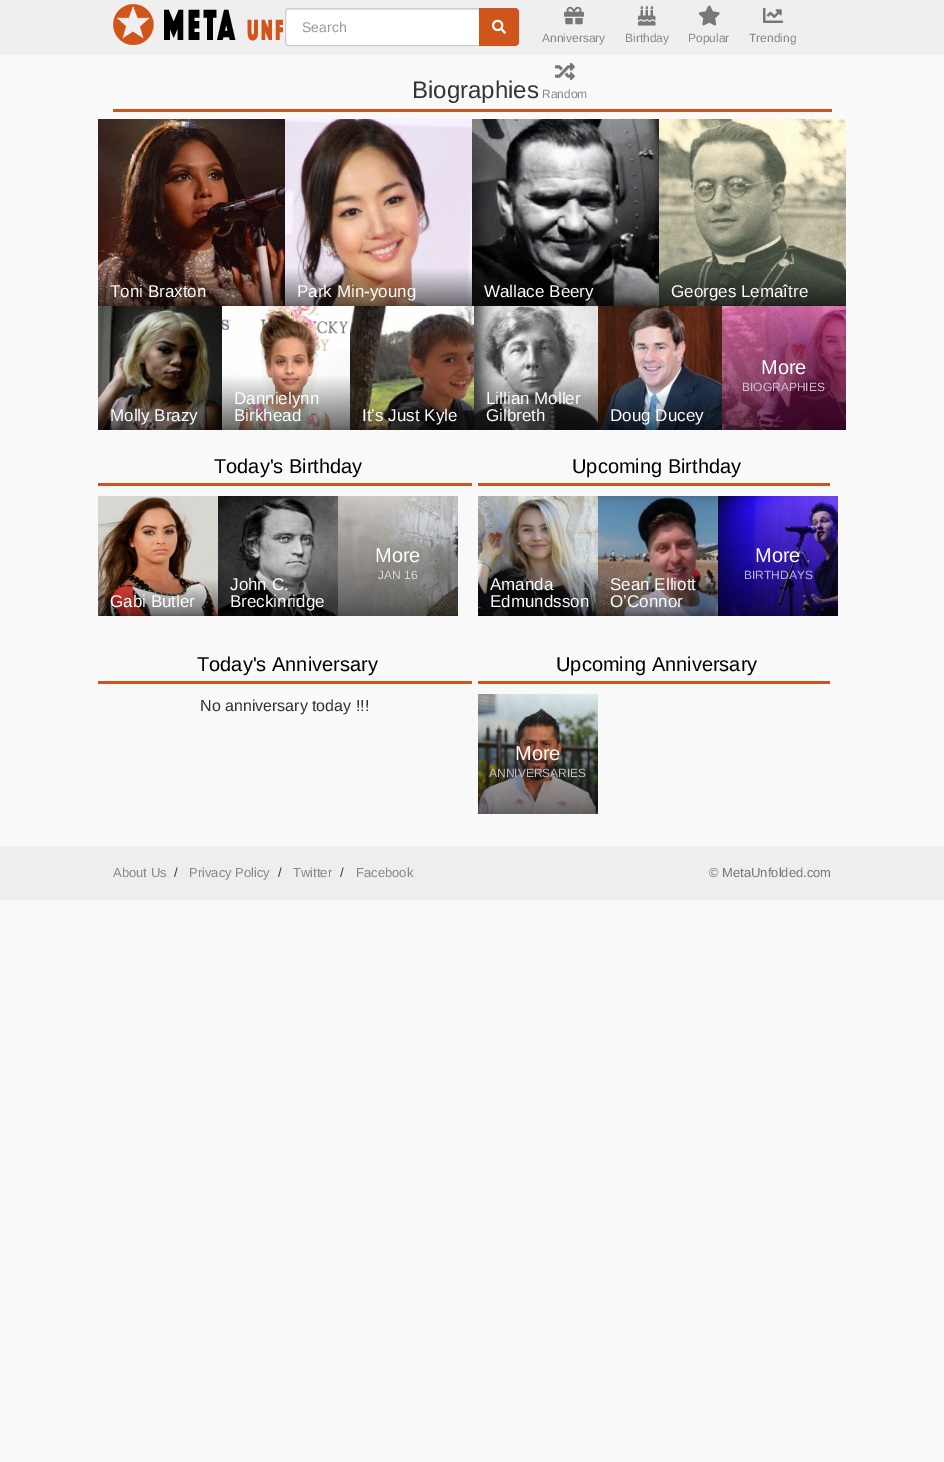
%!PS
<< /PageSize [944 1462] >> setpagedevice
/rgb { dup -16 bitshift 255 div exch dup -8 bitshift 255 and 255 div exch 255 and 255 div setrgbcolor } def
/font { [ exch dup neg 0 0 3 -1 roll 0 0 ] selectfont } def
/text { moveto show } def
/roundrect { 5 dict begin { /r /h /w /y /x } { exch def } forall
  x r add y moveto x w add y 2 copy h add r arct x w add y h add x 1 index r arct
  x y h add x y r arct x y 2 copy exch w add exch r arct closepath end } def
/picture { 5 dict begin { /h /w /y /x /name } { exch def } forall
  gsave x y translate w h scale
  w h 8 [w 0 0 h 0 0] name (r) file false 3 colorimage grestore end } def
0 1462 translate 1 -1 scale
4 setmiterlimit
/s1 { /LiberationSans-Regular 14 font 16#999999 rgb } def
/s2 { /LiberationSans-Regular 12 font 16#888888 rgb } def
/s3 { /LiberationSans-Regular 24 font 16#333333 rgb } def
/s4 { /LiberationSans-Regular 17 font 16#FFFFFF rgb } def
/s5 { /LiberationSans-Regular 20 font 16#FFFFFF rgb } def
/s6 { /LiberationSans-Regular 12 font 16#D5C1CC rgb } def
/s7 { /LiberationSans-Regular 20 font 16#000000 rgb } def
/s8 { /LiberationSans-Regular 12 font 16#D9D9D8 rgb } def
/s9 { /LiberationSans-Regular 12 font 16#BDB7DC rgb } def
/s10 { /LiberationSans-Regular 16 font 16#333333 rgb } def
/s11 { /LiberationSans-Regular 12 font 16#C3C2BF rgb } def
/s12 { /LiberationSans-Regular 13 font 16#888888 rgb } def
/s13 { /LiberationSans-Regular 13 font 16#333333 rgb } def
/s14 { /LiberationSans-Regular 13 font 16#777777 rgb } def
16#F9F9F9 rgb
0 0 944 1462 rectfill
16#EFEFEF rgb
0 0 944 55 rectfill
(pic1.raw) 113 4 170 41 picture
16#FFFFFF rgb
285 8 234 38 4 roundrect fill
16#ECECEC rgb
289 10 moveto 515 10 lineto 517 10 518 11 518 13 curveto 518 11 517 9 515 9 curveto 289 9 lineto 287 9 286 11 286 13 curveto 286 11 287 10 289 10 curveto closepath fill
16#CCCCCC rgb
285.5 8.5 233 37 3.5 roundrect stroke
s1
(Search) 302 32 text
16#D0551B rgb
479 8 moveto 515 8 lineto 517 8 519 10 519 12 curveto 519 42 lineto 519 44 517 46 515 46 curveto 479 46 lineto closepath fill
(pic2.raw) 492 19 14 15 picture
(pic3.raw) 564 6 20 19 picture
s2
(Anniversary) 542 42 text
(pic4.raw) 638 5 18 21 picture
(Birthday) 625 42 text
(pic5.raw) 698 5 22 21 picture
(Popular) 688 42 text
(pic6.raw) 763 8 20 15 picture
(Trending) 749 42 text
(pic7.raw) 555 62 20 19 picture
(Random) 542 98 text
16#D0551B rgb
113 109 719 3 rectfill
s3
(Biographies) 412 98 text
(pic8.raw) 98 119 187 187 picture
s4
(Toni Braxton) 110 297 text
(pic9.raw) 285 119 187 187 picture
(Park Min-young) 297 297 text
(pic10.raw) 472 119 187 187 picture
(Wallace Beery) 484 297 text
(pic11.raw) 659 119 187 187 picture
(Georges Lemaître) 671 297 text
(pic12.raw) 722 306 124 124 picture
s5
(More) 761 374 text
s6
(BIOGRAPHIES) 742 391 text
(pic13.raw) 98 306 124 124 picture
s4
(Molly Brazy) 110 421 text
(pic14.raw) 222 306 128 124 picture
(Dannielynn) 234 404 text
(Birkhead) 234 421 text
(pic15.raw) 350 306 124 124 picture
(It’s Just Kyle) 362 421 text
(pic16.raw) 474 306 124 124 picture
(Lillian Moller) 486 404 text
(Gilbreth) 486 421 text
(pic17.raw) 598 306 124 124 picture
(Doug Ducey) 610 421 text
16#D0551B rgb
98 483 374 3 rectfill
s7
(Today's Birthday) 214 473 text
(pic18.raw) 338 496 120 120 picture
s5
(More) 375 562 text
s8
(JAN 16) 378 579 text
(pic19.raw) 98 496 120 120 picture
s4
(Gabi Butler) 110 607 text
(pic20.raw) 218 496 120 120 picture
(John C.) 230 590 text
(Breckinridge) 230 607 text
16#D0551B rgb
478 483 352 3 rectfill
s7
(Upcoming Birthday) 572 473 text
(pic21.raw) 718 496 120 120 picture
s5
(More) 755 562 text
s9
(BIRTHDAYS) 744 579 text
(pic22.raw) 478 496 120 120 picture
s4
(Amanda) 490 590 text
(Edmundsson) 490 607 text
(pic23.raw) 598 496 120 120 picture
(Sean Elliott) 610 590 text
(O’Connor) 610 607 text
16#D0551B rgb
98 681 374 3 rectfill
s7
(Today's Anniversary) 197 671 text
s10
(No anniversary today !!!) 200 711 text
16#D0551B rgb
478 681 352 3 rectfill
s7
(Upcoming Anniversary) 556 671 text
(pic24.raw) 478 694 120 120 picture
s5
(More) 515 760 text
s11
(ANNIVERSARIES) 489 777 text
16#EEEEEE rgb
0 846 944 54 rectfill
s12
(About Us) 113 877 text
s13
(/) 174 877 text
s12
(Privacy Policy) 189 877 text
s13
(/) 278 877 text
s12
(Twitter) 293 877 text
s13
(/) 340 877 text
s12
(Facebook) 356 877 text
s14
(© MetaUnfolded.com) 709 877 text
showpage
